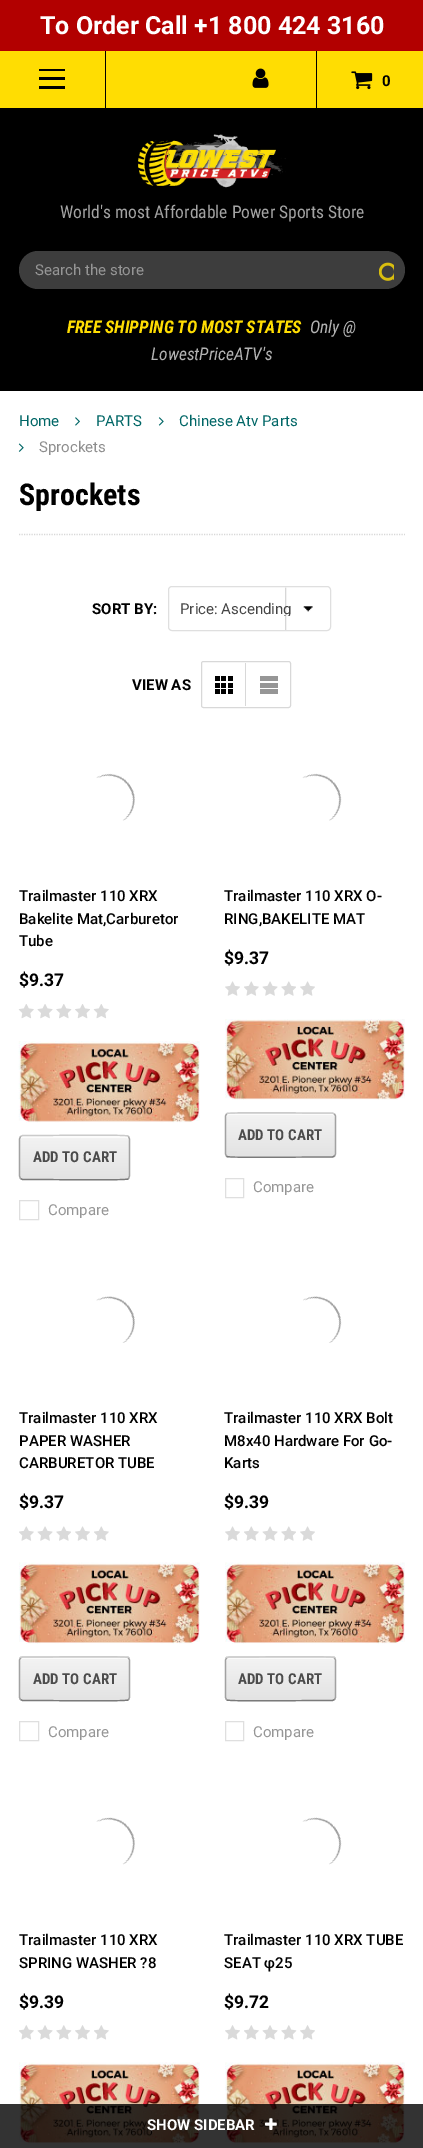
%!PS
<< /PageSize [423 2148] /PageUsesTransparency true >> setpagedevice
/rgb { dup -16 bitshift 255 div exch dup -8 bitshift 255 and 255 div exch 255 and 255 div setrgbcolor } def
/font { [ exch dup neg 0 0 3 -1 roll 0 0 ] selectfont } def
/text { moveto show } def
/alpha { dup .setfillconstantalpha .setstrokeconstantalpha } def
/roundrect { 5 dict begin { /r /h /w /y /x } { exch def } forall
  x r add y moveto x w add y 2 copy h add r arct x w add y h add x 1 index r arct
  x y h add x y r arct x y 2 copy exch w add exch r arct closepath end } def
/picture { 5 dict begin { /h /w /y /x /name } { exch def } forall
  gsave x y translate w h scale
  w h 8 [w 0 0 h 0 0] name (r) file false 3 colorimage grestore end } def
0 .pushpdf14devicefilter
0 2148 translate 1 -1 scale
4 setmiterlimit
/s1 { /Roboto-Bold 25 font 16#FFFFFF rgb } def
/s2 { /Roboto-Bold 15 font 16#000000 rgb } def
/s3 { /RobotoCondensed-Regular 17.5 font 16#A3A3A3 rgb } def
/s4 { /Roboto-Regular 15 font 16#969696 rgb } def
/s5 { /RobotoCondensed-BoldItalic 17.5 font 16#FFDD02 rgb } def
/s6 { /RobotoCondensed-Italic 17.5 font 16#B2B2B2 rgb } def
/s7 { /Roboto-Regular 15 font 16#006666 rgb } def
/s8 { /Roboto-Regular 15 font 16#8E8E8E rgb } def
/s9 { /RobotoCondensed-Bold 30 font 16#000000 rgb } def
/s10 { /Roboto-Regular 15 font 16#454545 rgb } def
/s11 { /Roboto-Medium 15 font 16#000000 rgb } def
/s12 { /Roboto-Bold 17.5 font 16#000000 rgb } def
/s13 { /RobotoCondensed-Bold 15 font 16#4C4C4C rgb } def
/s14 { /Roboto-Bold 15 font 16#FFFFFF rgb } def
16#000000 rgb
0 0 423 2148 rectfill
16#B20000 rgb
0 0 423 51 rectfill
s1
(To Order Call +1 800 424 3160) 40 34 text
16#FFDD02 rgb
0 51 423 57 rectfill
16#000000 rgb
105 51 1 57 rectfill
39 69 26 2 rectfill
39 77 26 3 rectfill
39 86 26 3 rectfill
316 51 1 57 rectfill
(pic1.raw) 252 68 17 20 picture
(pic2.raw) 351 71 22 19 picture
s2
(0) 382 86 text
(pic3.raw) 138 134 148 54 picture
s3
(World's most Affordable Power Sports Store) 60 218 text
16#3D3D3D rgb
19 251 386 38 19 roundrect fill
s4
(Search the store) 35 275 text
(pic4.raw) 379 262 15 19 picture
s5
(FREE SHIPPING TO MOST STATES) 67 333 text
s6
(Only @) 310 333 text
(LowestPriceATV's) 151 360 text
16#FFFFFF rgb
0 391 423 1757 rectfill
s7
(Home) 19 426 text
(pic5.raw) 75 417 5 9 picture
(PARTS) 96 426 text
(pic6.raw) 158 417 6 9 picture
(Chinese Atv Parts) 179 426 text
(pic7.raw) 18 443 6 9 picture
s8
(Sprockets) 39 452 text
16#D8D8D8 rgb
1.2 setlinewidth
[1.25 1.25] 0 setdash
19 534.5 moveto 405 534.5 lineto stroke
s9
(Sprockets) 19 505 text
s2
(SORT BY:) 92 614 text
(pic8.raw) 285 587 28 43 picture
16#DFDFDF rgb
1 setlinewidth
[] 0 setdash
168.5 586.5 162 44 3.5 roundrect stroke
gsave
180 601 120 15 rectclip
s10
(Price: Ascending) 180 614 text
grestore
s2
(VIEW AS) 132 690 text
16#D8D8D8 rgb
201.5 661.5 89 46 2 roundrect stroke
245 663 1 43 rectfill
16#000000 rgb
221 676 5 5 rectfill
215 676 5 5 rectfill
228 676 5 5 rectfill
221 683 5 5 rectfill
215 683 5 5 rectfill
228 683 5 5 rectfill
221 689 5 5 rectfill
215 689 5 5 rectfill
228 689 5 5 rectfill
16#969696 rgb
260 676 18 5 rectfill
260 683 18 5 rectfill
260 689 18 5 rectfill
(pic9.raw) 96 773 39 48 picture
s11
(Trailmaster 110 XRX) 19 901 text
(Bakelite Mat,Carburetor) 19 924 text
(Tube) 19 946 text
s12
($9.37) 19 986 text
(pic10.raw) 18 1004 16 15 picture
(pic11.raw) 37 1004 16 15 picture
(pic12.raw) 56 1004 16 15 picture
(pic13.raw) 75 1004 15 15 picture
(pic10.raw) 93 1004 16 15 picture
(pic14.raw) 18 1041 182 82 picture
gsave
19 1135 111 45 4 roundrect clip newpath
gsave 19 1136 moveto 130 1136 lineto 130 1179 lineto 19 1179 lineto closepath clip newpath
<< /ShadingType 2 /ColorSpace /DeviceRGB /Coords [74 1136 74 1179] /Extend [true true] /Function << /FunctionType 2 /Domain [0 1] /C0 [0.953 0.953 0.953] /C1 [0.89 0.89 0.89] /N 1 >> >> shfill grestore
grestore
16#FBFBFB rgb
22 1138 moveto 126 1138 lineto 128 1138 129 1139 129 1140 curveto 129 1138 lineto 129 1137 128 1136 126 1136 curveto 22 1136 lineto 21 1136 20 1137 20 1138 curveto 20 1140 lineto 20 1139 21 1138 22 1138 curveto closepath fill
16#CBCBCB rgb
1.2 setlinewidth
20.5 1136.5 moveto 22.5 1135.5 lineto 40 1135.5 lineto 49 1135.5 125.5 1134.5 128 1136 curveto 128.5 1136.5 lineto stroke
16#A2A2A2 rgb
128.5 1136.5 moveto 129.5 1139 lineto 129.5 1176 lineto 128.5 1178.5 lineto stroke
16#7A7A7A rgb
128.5 1178.5 moveto 128 1179 lineto 125.5 1180.5 49 1179.5 40 1179.5 curveto 22.5 1179.5 lineto 20.5 1178.5 lineto stroke
16#A2A2A2 rgb
20.5 1178.5 moveto 19.5 1176 lineto 19.5 1139 lineto 20.5 1136.5 lineto stroke
s13
(ADD TO CART) 33 1162 text
16#DFDFDF rgb
1 setlinewidth
19.5 1200.5 19 19 rectstroke
s4
(Compare) 48 1215 text
(pic15.raw) 302 773 40 48 picture
s11
(Trailmaster 110 XRX O-) 224 901 text
(RING,BAKELITE MAT) 224 924 text
s12
($9.37) 224 964 text
(pic16.raw) 225 981 15 15 picture
(pic17.raw) 244 981 15 15 picture
(pic18.raw) 262 981 16 15 picture
(pic19.raw) 281 981 15 15 picture
(pic16.raw) 300 981 15 15 picture
(pic20.raw) 225 1019 180 81 picture
gsave
225 1113 111 45 4 roundrect clip newpath
gsave 225 1113 moveto 336 1113 lineto 336 1114 lineto 225 1114 lineto closepath clip newpath
<< /ShadingType 2 /ColorSpace /DeviceRGB /Coords [281 1071 281 1114] /Extend [true true] /Function << /FunctionType 2 /Domain [0 1] /C0 [0.953 0.953 0.953] /C1 [0.89 0.89 0.89] /N 1 >> >> shfill grestore
gsave 225 1114 moveto 336 1114 lineto 336 1156 lineto 225 1156 lineto closepath clip newpath
<< /ShadingType 2 /ColorSpace /DeviceRGB /Coords [281 1114 281 1156] /Extend [true true] /Function << /FunctionType 2 /Domain [0 1] /C0 [0.953 0.953 0.953] /C1 [0.89 0.89 0.89] /N 1 >> >> shfill grestore
gsave 225 1156 moveto 336 1156 lineto 336 1158 lineto 225 1158 lineto closepath clip newpath
<< /ShadingType 2 /ColorSpace /DeviceRGB /Coords [281 1156 281 1199] /Extend [true true] /Function << /FunctionType 2 /Domain [0 1] /C0 [0.953 0.953 0.953] /C1 [0.89 0.89 0.89] /N 1 >> >> shfill grestore
grestore
16#FBFBFB rgb
229 1115 moveto 332 1115 lineto 334 1115 335 1116 335 1118 curveto 335 1116 lineto 335 1115 334 1114 332 1114 curveto 228 1114 lineto 227 1114 226 1115 226 1116 curveto 226 1118 lineto 226 1116 227 1115 229 1115 curveto closepath fill
16#CBCBCB rgb
1.2 setlinewidth
226.5 1114 moveto 227 1113.5 lineto 229.5 1112 306 1113 315 1113 curveto 332.5 1113 lineto 334.5 1114 lineto stroke
16#A2A2A2 rgb
334.5 1114 moveto 335.5 1116 lineto 335.5 1154 lineto 334.5 1156 lineto stroke
16#7A7A7A rgb
334.5 1156 moveto 332.5 1157 lineto 315 1157 lineto 306 1157 229.5 1158 227 1156.5 curveto 226.5 1156 lineto stroke
16#A2A2A2 rgb
226.5 1156 moveto 225.5 1154 lineto 225.5 1116 lineto 226.5 1114 lineto stroke
s13
(ADD TO CART) 238 1140 text
16#DFDFDF rgb
1 setlinewidth
225.5 1178.5 18 19 rectstroke
s4
(Compare) 253 1192 text
(pic21.raw) 96 1296 39 47 picture
s11
(Trailmaster 110 XRX) 19 1423 text
(PAPER WASHER) 19 1446 text
(CARBURETOR TUBE) 19 1468 text
s12
($9.37) 19 1508 text
(pic17.raw) 19 1526 15 15 picture
(pic18.raw) 37 1526 16 15 picture
(pic19.raw) 56 1526 15 15 picture
(pic16.raw) 75 1526 15 15 picture
(pic17.raw) 94 1526 15 15 picture
(pic22.raw) 19 1562 181 82 picture
gsave
19 1656 111 45 4 roundrect clip newpath
gsave 19 1656 moveto 130 1656 lineto 130 1658 lineto 19 1658 lineto closepath clip newpath
<< /ShadingType 2 /ColorSpace /DeviceRGB /Coords [74 1615 74 1658] /Extend [true true] /Function << /FunctionType 2 /Domain [0 1] /C0 [0.953 0.953 0.953] /C1 [0.89 0.89 0.89] /N 1 >> >> shfill grestore
gsave 19 1658 moveto 130 1658 lineto 130 1700 lineto 19 1700 lineto closepath clip newpath
<< /ShadingType 2 /ColorSpace /DeviceRGB /Coords [74 1658 74 1700] /Extend [true true] /Function << /FunctionType 2 /Domain [0 1] /C0 [0.953 0.953 0.953] /C1 [0.89 0.89 0.89] /N 1 >> >> shfill grestore
grestore
16#FBFBFB rgb
22 1659 moveto 126 1659 lineto 128 1659 129 1660 129 1661 curveto 129 1659 128 1658 126 1658 curveto 22 1658 lineto 21 1658 20 1660 20 1661 curveto 20 1660 21 1659 22 1659 curveto closepath fill
16#CBCBCB rgb
1.2 setlinewidth
20.5 1658 moveto 22.5 1657 lineto 40 1657 lineto 49 1657 125.5 1656 128 1657.5 curveto 128.5 1658 lineto stroke
16#A2A2A2 rgb
128.5 1658 moveto 129.5 1660 lineto 129.5 1697.5 lineto 128.5 1699.5 lineto stroke
16#7A7A7A rgb
128.5 1699.5 moveto 128 1700 lineto 125.5 1701.5 49 1700.5 40 1700.5 curveto 22.5 1700.5 lineto 20.5 1699.5 lineto stroke
16#A2A2A2 rgb
20.5 1699.5 moveto 19.5 1697.5 lineto 19.5 1660 lineto 20.5 1658 lineto stroke
s13
(ADD TO CART) 33 1684 text
16#DFDFDF rgb
1 setlinewidth
19.5 1721.5 19 19 rectstroke
s4
(Compare) 48 1737 text
(pic23.raw) 303 1296 39 47 picture
s11
(Trailmaster 110 XRX Bolt) 224 1423 text
(M8x40 Hardware For Go-) 224 1446 text
(Karts) 224 1468 text
s12
($9.39) 224 1508 text
(pic16.raw) 225 1526 15 15 picture
(pic17.raw) 244 1526 15 15 picture
(pic18.raw) 262 1526 16 15 picture
(pic19.raw) 281 1526 15 15 picture
(pic16.raw) 300 1526 15 15 picture
(pic24.raw) 225 1562 180 82 picture
gsave
225 1656 111 45 4 roundrect clip newpath
gsave 225 1656 moveto 336 1656 lineto 336 1658 lineto 225 1658 lineto closepath clip newpath
<< /ShadingType 2 /ColorSpace /DeviceRGB /Coords [281 1615 281 1658] /Extend [true true] /Function << /FunctionType 2 /Domain [0 1] /C0 [0.953 0.953 0.953] /C1 [0.89 0.89 0.89] /N 1 >> >> shfill grestore
gsave 225 1658 moveto 336 1658 lineto 336 1700 lineto 225 1700 lineto closepath clip newpath
<< /ShadingType 2 /ColorSpace /DeviceRGB /Coords [281 1658 281 1700] /Extend [true true] /Function << /FunctionType 2 /Domain [0 1] /C0 [0.953 0.953 0.953] /C1 [0.89 0.89 0.89] /N 1 >> >> shfill grestore
grestore
16#FBFBFB rgb
229 1659 moveto 332 1659 lineto 334 1659 335 1660 335 1661 curveto 335 1659 334 1658 332 1658 curveto 228 1658 lineto 227 1658 226 1660 226 1661 curveto 226 1660 227 1659 229 1659 curveto closepath fill
16#CBCBCB rgb
1.2 setlinewidth
226.5 1658 moveto 229 1657 lineto 246 1657 lineto 255.5 1657 332 1656 334 1657.5 curveto 334.5 1658 lineto stroke
16#A2A2A2 rgb
334.5 1658 moveto 335.5 1660 lineto 335.5 1697.5 lineto 334.5 1699.5 lineto stroke
16#7A7A7A rgb
334.5 1699.5 moveto 332.5 1700.5 lineto 315 1700.5 lineto 306 1700.5 229.5 1701.5 227 1700 curveto 226.5 1699.5 lineto stroke
16#A2A2A2 rgb
226.5 1699.5 moveto 225.5 1697.5 lineto 225.5 1660 lineto 226.5 1658 lineto stroke
s13
(ADD TO CART) 238 1684 text
16#DFDFDF rgb
1 setlinewidth
225.5 1721.5 18 19 rectstroke
s4
(Compare) 253 1737 text
(pic25.raw) 96 1817 39 48 picture
s11
(Trailmaster 110 XRX) 19 1945 text
(SPRING WASHER ?8) 19 1968 text
s12
($9.39) 19 2008 text
(pic26.raw) 19 2025 15 15 picture
(pic27.raw) 37 2025 16 15 picture
(pic28.raw) 56 2025 16 15 picture
(pic29.raw) 75 2025 15 15 picture
(pic26.raw) 94 2025 15 15 picture
(pic30.raw) 19 2062 181 82 picture
(pic31.raw) 302 1817 40 48 picture
s11
(Trailmaster 110 XRX TUBE) 224 1945 text
(SEAT φ25) 224 1968 text
s12
($9.72) 224 2008 text
(pic29.raw) 225 2025 15 15 picture
(pic26.raw) 244 2025 15 15 picture
(pic27.raw) 262 2025 16 15 picture
(pic28.raw) 281 2025 16 15 picture
(pic29.raw) 300 2025 15 15 picture
(pic32.raw) 225 2062 180 82 picture
0.8 alpha
0 2104 423 44 rectfill
1 alpha
s14
(SHOW SIDEBAR) 147 2130 text
(pic33.raw) 265 2118 12 12 picture
.poppdf14devicefilter showpage
